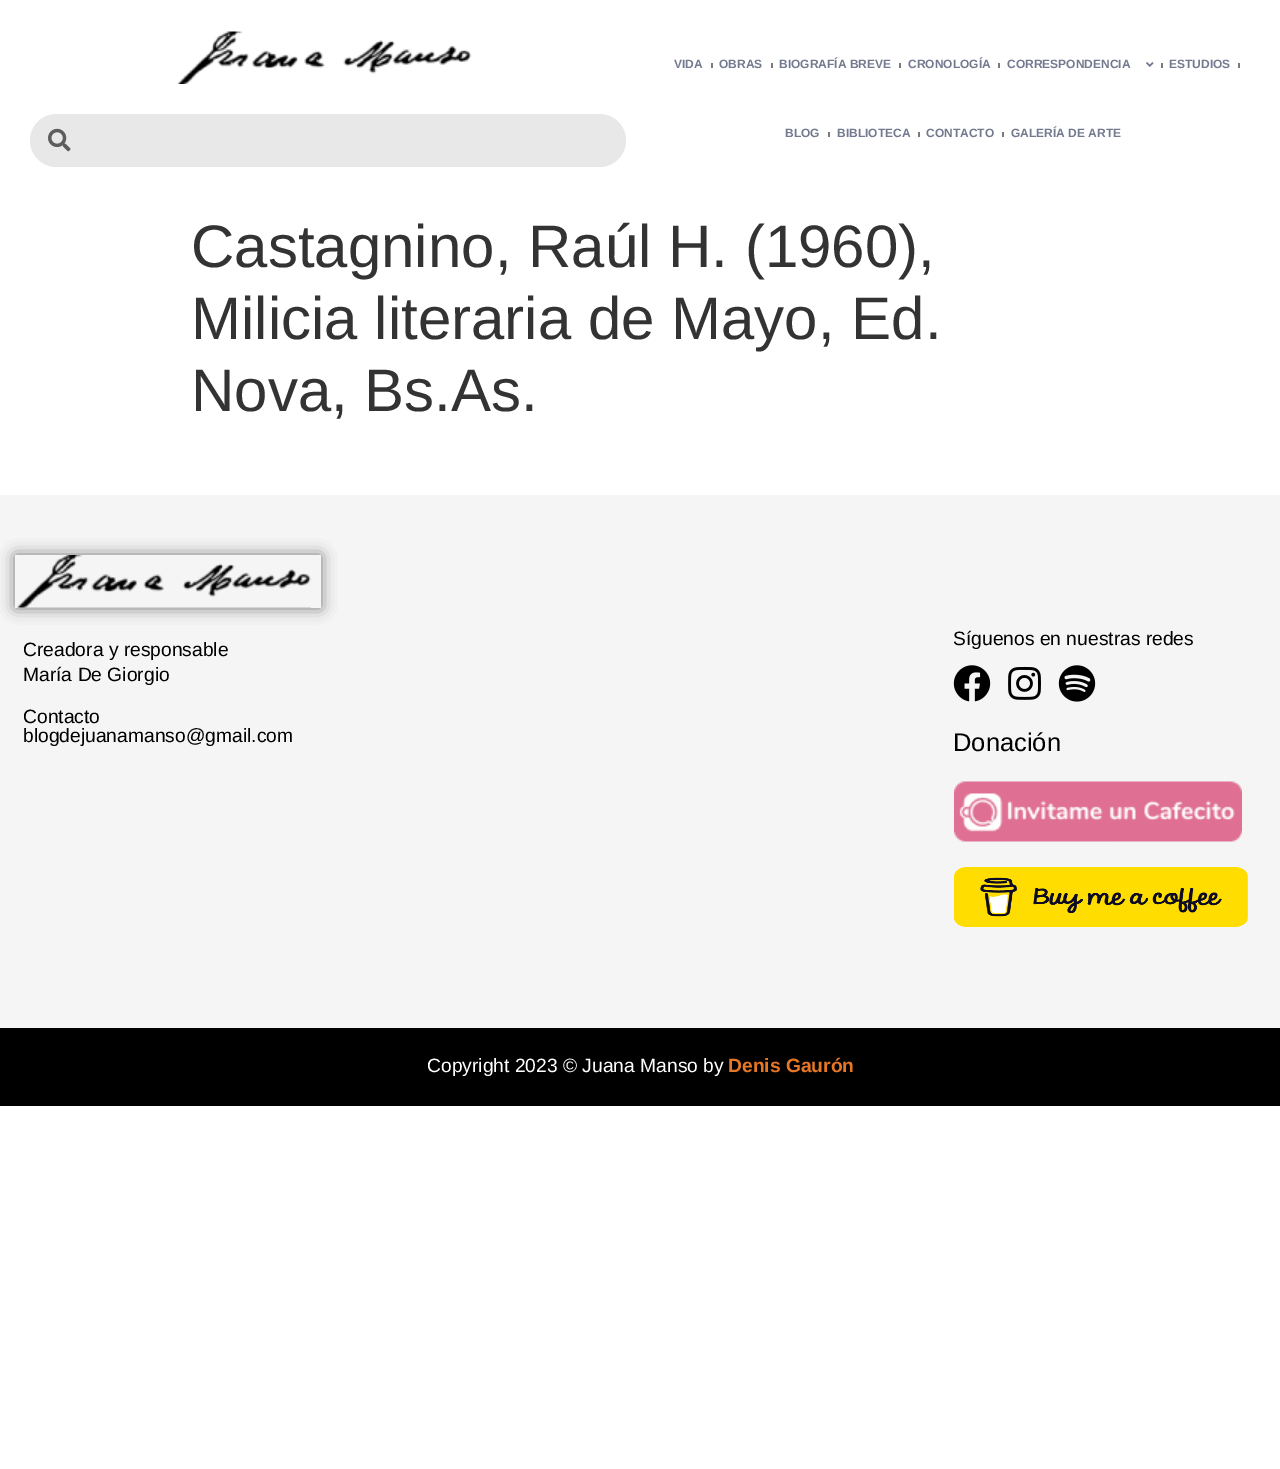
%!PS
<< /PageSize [1280 1469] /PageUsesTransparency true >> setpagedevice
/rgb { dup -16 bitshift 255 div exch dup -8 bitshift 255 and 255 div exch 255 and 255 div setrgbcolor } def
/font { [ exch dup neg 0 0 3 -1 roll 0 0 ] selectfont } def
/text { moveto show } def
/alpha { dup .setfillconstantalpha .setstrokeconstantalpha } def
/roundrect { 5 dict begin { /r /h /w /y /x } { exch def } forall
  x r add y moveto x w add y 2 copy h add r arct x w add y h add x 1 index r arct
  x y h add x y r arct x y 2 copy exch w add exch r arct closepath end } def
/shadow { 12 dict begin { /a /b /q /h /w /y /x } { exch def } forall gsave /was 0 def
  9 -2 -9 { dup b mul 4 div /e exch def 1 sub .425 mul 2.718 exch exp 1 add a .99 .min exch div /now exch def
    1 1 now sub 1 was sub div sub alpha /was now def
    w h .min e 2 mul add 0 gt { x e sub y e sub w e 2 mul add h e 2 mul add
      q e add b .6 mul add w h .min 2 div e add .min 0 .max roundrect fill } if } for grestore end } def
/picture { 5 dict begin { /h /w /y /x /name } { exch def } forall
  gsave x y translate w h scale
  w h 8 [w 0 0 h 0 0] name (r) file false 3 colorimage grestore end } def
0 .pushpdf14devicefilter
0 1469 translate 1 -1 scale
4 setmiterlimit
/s1 { /LiberationSans-Bold 12 font 16#73798F rgb } def
/s2 { /LiberationSans-Regular 60 font 16#333333 rgb } def
/s3 { /LiberationSans-Regular 19.25 font 16#000000 rgb } def
/s4 { /LiberationSans-Regular 25.5 font 16#000000 rgb } def
/s5 { /LiberationSans-Regular 19.25 font 16#FFFFFF rgb } def
/s6 { /LiberationSans-Bold 19.25 font 16#E77724 rgb } def
16#FFFFFF rgb
0 0 1280 1469 rectfill
(pic1.raw) 178 31 294 53 picture
16#E8E8E8 rgb
30 114 596 53 26.5 roundrect fill
(pic2.raw) 48 128 23 24 picture
s1
(VIDA) 674 68 text
16#7A7A7A rgb
711 63 2 5 rectfill
s1
(OBRAS) 719 68 text
16#7A7A7A rgb
771 63 2 5 rectfill
s1
(BIOGRAFÍA BREVE) 779 68 text
16#7A7A7A rgb
899 63 2 5 rectfill
s1
(CRONOLOGÍA) 908 68 text
16#7A7A7A rgb
998 63 2 5 rectfill
s1
(CORRESPONDENCIA) 1007 68 text
(pic3.raw) 1146 62 8 5 picture
16#7A7A7A rgb
1161 63 2 5 rectfill
s1
(ESTUDIOS) 1169 68 text
16#7A7A7A rgb
1238 63 2 5 rectfill
s1
(BLOG) 785 137 text
16#7A7A7A rgb
828 132 2 5 rectfill
s1
(BIBLIOTECA) 837 137 text
16#7A7A7A rgb
918 132 2 5 rectfill
s1
(CONTACTO) 926 137 text
16#7A7A7A rgb
1002 132 2 5 rectfill
s1
(GALERÍA DE ARTE) 1011 137 text
s2
(Castagnino, Raúl H. \(1960\),) 191 267 text
(Milicia literaria de Mayo, Ed.) 191 339 text
(Nova, Bs.As.) 191 411 text
16#F5F5F5 rgb
0 495 1280 533 rectfill
gsave
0 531 moveto 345 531 lineto 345 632 lineto 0 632 lineto closepath 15 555 moveto 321 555 lineto 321 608 lineto 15 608 lineto closepath eoclip newpath
16#000000 rgb
15 555 306 53 0 7.5 0.5 shadow
grestore
(pic4.raw) 17 555 294 53 picture
s3
(Creadora y responsable) 23 656 text
(María De Giorgio) 23 681 text
(Contacto) 23 723 text
(blogdejuanamanso@gmail.com) 23 742 text
(Síguenos en nuestras redes) 953 645 text
(pic5.raw) 953 665 38 37 picture
(pic6.raw) 1008 666 33 34 picture
(pic7.raw) 1058 665 38 37 picture
s4
(Donación) 953 751 text
(pic8.raw) 954 781 288 61 picture
(pic9.raw) 954 867 294 60 picture
0 1028 1280 78 rectfill
s5
(Copyright 2023 © Juana Manso by) 427 1072 text
s6
(Denis Gaurón) 728 1072 text
.poppdf14devicefilter showpage
